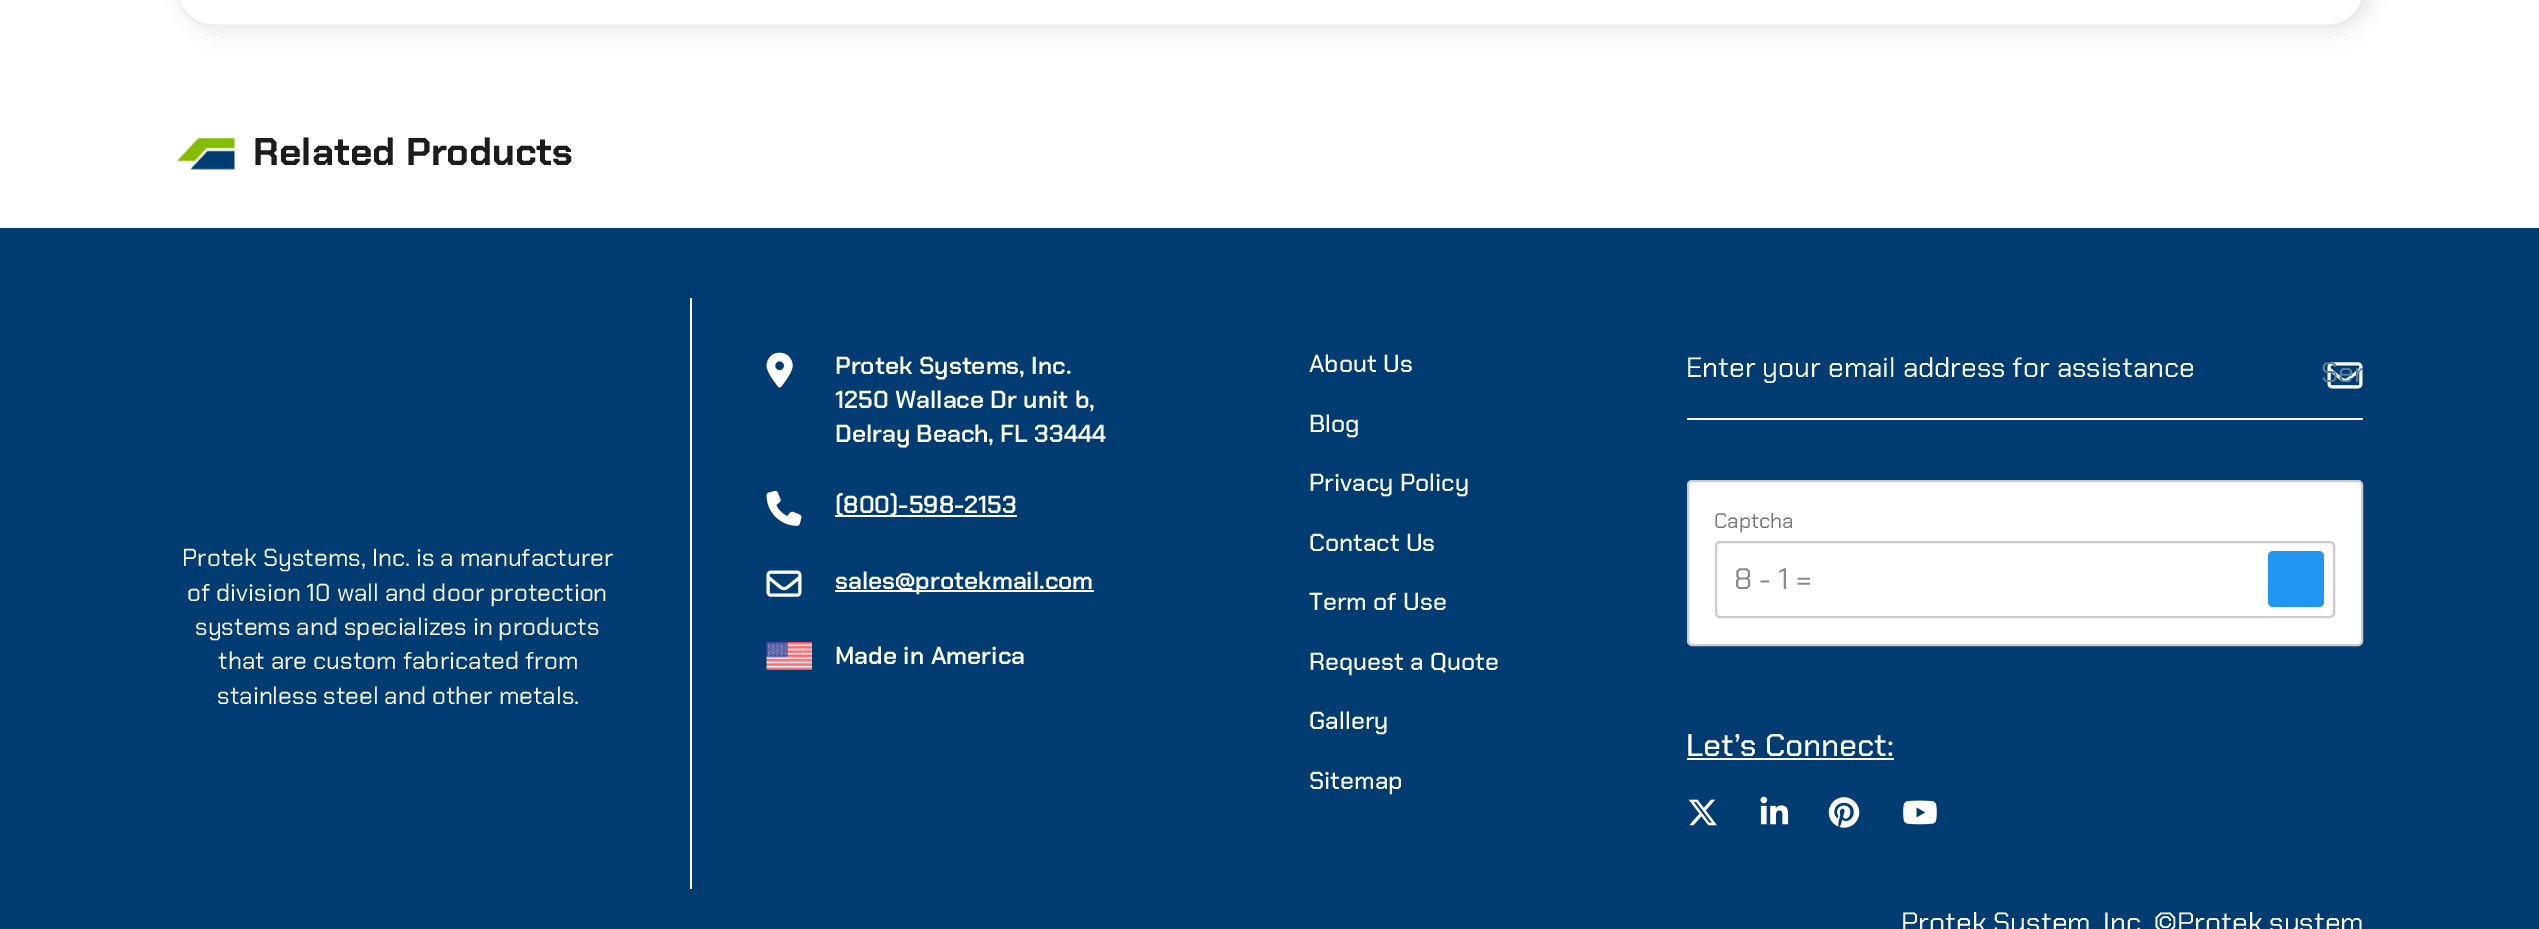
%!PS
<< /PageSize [2539 929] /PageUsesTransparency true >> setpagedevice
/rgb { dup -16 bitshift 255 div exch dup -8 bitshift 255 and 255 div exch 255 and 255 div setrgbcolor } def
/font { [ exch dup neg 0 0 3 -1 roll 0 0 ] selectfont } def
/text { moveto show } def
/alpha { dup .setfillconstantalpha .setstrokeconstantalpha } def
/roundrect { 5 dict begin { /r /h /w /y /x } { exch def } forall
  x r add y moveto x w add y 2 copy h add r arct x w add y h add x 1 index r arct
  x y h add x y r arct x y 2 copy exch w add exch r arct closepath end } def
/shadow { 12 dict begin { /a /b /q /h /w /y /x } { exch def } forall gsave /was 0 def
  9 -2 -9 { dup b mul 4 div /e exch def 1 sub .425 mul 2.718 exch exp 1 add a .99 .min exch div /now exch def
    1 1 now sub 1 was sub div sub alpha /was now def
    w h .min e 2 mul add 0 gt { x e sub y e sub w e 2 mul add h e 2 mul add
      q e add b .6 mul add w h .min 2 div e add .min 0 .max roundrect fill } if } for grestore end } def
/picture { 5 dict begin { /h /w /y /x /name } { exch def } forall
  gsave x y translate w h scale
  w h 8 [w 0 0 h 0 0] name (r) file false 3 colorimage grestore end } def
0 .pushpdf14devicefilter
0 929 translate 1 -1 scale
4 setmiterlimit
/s1 { /ChakraPetch-Bold 38.5 font 16#1C1C1C rgb } def
/s2 { /ChakraPetch-Regular 24.5 font 16#FFFFFF rgb } def
/s3 { /ChakraPetch-SemiBold 24.5 font 16#FFFFFF rgb } def
/s4 { /ChakraPetch-Medium 24.5 font 16#FFFFFF rgb } def
/s5 { /ChakraPetch-Regular 28 font 16#FFFFFF rgb } def
/s6 { /ChakraPetch-Regular 28 font 16#5A81A3 rgb } def
/s7 { /ChakraPetch-Regular 21 font 16#777777 rgb } def
/s8 { /ChakraPetch-Regular 29.5 font 16#8A8A8A rgb } def
/s9 { /ChakraPetch-Medium 31.5 font 16#FFFFFF rgb } def
16#FFFFFF rgb
0 0 2539 929 rectfill
gsave
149 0 moveto 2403 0 lineto 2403 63 lineto 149 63 lineto closepath 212 -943 moveto 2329 -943 lineto 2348.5 -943 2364 -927.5 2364 -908 curveto 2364 -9 lineto 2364 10.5 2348.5 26 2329 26 curveto 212 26 lineto 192.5 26 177 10.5 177 -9 curveto 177 -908 lineto 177 -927.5 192.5 -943 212 -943 curveto closepath eoclip newpath
16#CDCDCD rgb
182 -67 2188 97 35 10.5 0.5 shadow
grestore
0.3 alpha
16#D2D2D2 rgb
2 setlinewidth
178 -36 2185 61 34 roundrect stroke
1 alpha
(pic1.raw) 176 138 59 32 picture
s1
(Related Products) 253 165 text
16#003C71 rgb
0 228 2539 701 rectfill
16#FFFFFF rgb
690 298 2 591 rectfill
s2
(Protek Systems, Inc. is a manufacturer) 182 566 text
(of division 10 wall and door protection) 187 601 text
(systems and specializes in products) 195 635 text
(that are custom fabricated from) 218 669 text
(stainless steel and other metals.) 217 704 text
(pic2.raw) 766 352 27 36 picture
s3
(Protek Systems, Inc.) 835 374 text
(1250 Wallace Dr unit b,) 835 408 text
(Delray Beach, FL 33444) 835 442 text
(pic3.raw) 766 490 36 36 picture
835 515 182 2 rectfill
(\(800\)-598-2153) 835 513 text
(pic4.raw) 766 570 36 27 picture
835 590 259 2 rectfill
(sales@protekmail.com) 835 589 text
(pic5.raw) 766 642 46 28 picture
(Made in America) 835 664 text
s4
(About Us) 1309 372 text
(Blog) 1309 432 text
(Privacy Policy) 1309 491 text
(Contact Us) 1309 551 text
(Term of Use) 1309 610 text
(Request a Quote) 1309 670 text
(Gallery) 1309 729 text
(Sitemap) 1309 789 text
1687 418 676 2 rectfill
s5
(Enter your email address for assistance) 1686 377 text
(pic6.raw) 2327 362 36 27 picture
gsave
2321 354 42 40 rectclip
s6
(Sen) 2321 382 text
grestore
1688 481 674 164 4 roundrect gsave fill grestore
16#CCCCCC rgb
stroke
s7
(Captcha) 1714 528 text
16#CCCCCC rgb
1716 542 618 75 4 roundrect stroke
s8
(8 - 1 =) 1734 589 text
16#2196F3 rgb
2268 551 56 56 5 roundrect fill
s9
(Let’s Connect:) 1686 756 text
1687 758 207 2 rectfill
(pic7.raw) 1688 799 29 27 picture
(pic8.raw) 1760 796 29 29 picture
(pic9.raw) 1828 797 32 31 picture
(pic10.raw) 1903 800 34 25 picture
s5
(Protek System, Inc) 1901 932 text
(©Protek system) 2154 932 text
.poppdf14devicefilter showpage
